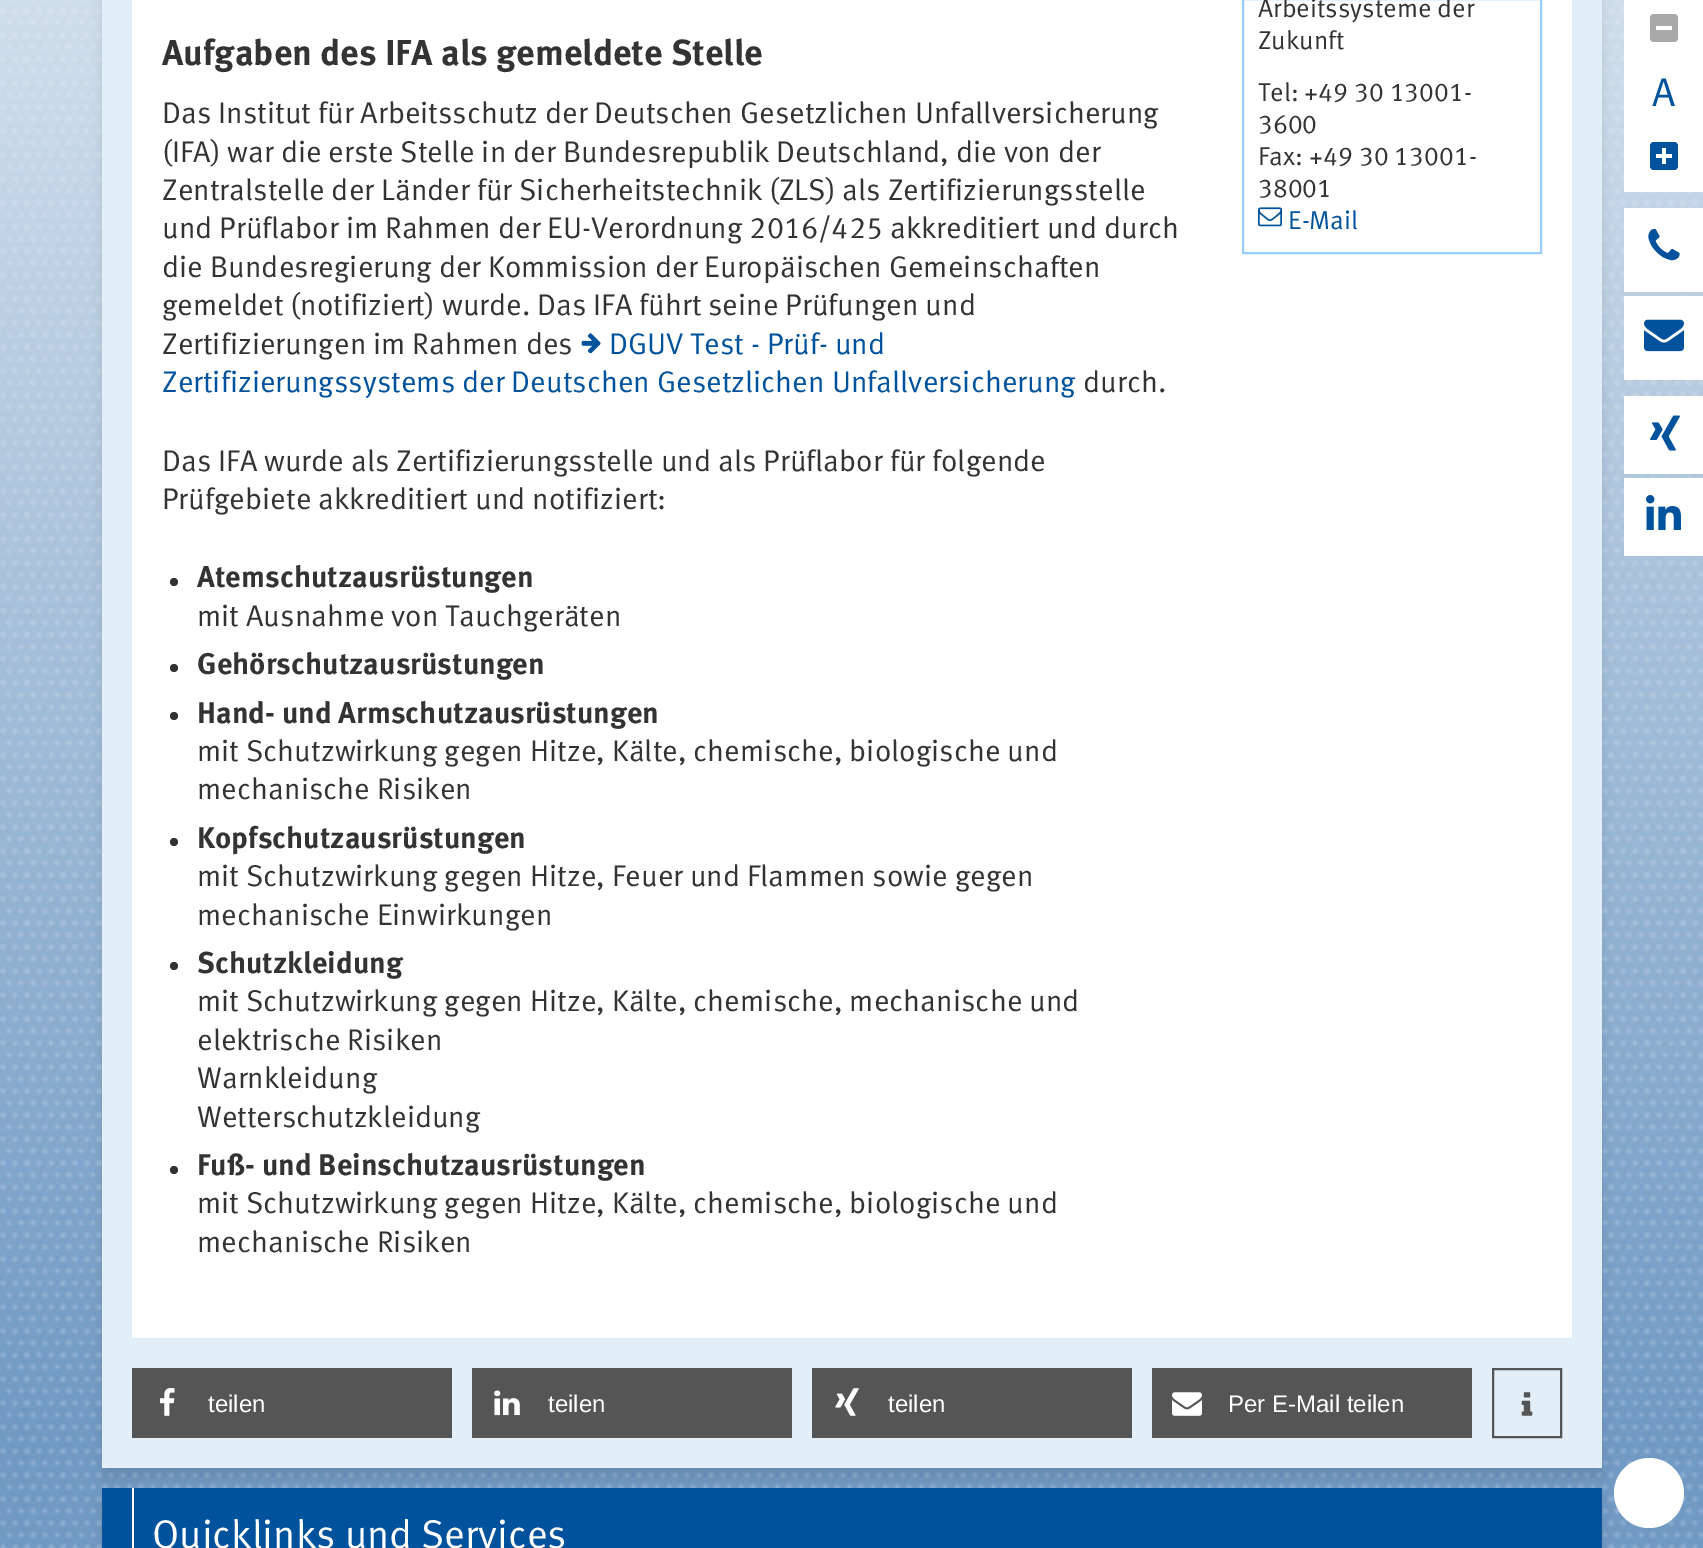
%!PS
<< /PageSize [1703 1548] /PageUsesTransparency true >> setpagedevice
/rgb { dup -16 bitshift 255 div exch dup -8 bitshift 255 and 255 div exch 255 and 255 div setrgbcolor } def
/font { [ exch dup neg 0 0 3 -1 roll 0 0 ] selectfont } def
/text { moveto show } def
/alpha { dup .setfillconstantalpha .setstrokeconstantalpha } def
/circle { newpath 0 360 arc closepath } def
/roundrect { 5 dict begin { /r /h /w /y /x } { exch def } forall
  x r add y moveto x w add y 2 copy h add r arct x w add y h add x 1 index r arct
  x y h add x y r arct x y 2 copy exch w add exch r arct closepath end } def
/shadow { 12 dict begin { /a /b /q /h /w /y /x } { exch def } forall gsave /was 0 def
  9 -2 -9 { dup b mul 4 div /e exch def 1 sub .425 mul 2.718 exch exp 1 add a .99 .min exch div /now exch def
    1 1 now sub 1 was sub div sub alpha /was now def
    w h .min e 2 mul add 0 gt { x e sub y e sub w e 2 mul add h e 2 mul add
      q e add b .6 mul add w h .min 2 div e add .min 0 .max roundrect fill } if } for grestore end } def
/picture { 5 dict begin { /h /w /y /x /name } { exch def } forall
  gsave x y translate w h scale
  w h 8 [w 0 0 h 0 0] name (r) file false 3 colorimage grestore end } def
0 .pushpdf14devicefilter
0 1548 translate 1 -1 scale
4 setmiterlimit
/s1 { /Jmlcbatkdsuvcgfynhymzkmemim-Bold 36 font 16#333333 rgb } def
/s2 { /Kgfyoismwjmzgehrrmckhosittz-Regular 30 font 16#333333 rgb } def
/s3 { /Kgfyoismwjmzgehrrmckhosittz-Regular 30 font 16#00529C rgb } def
/s4 { /Jmlcbatkdsuvcgfynhymzkmemim-Bold 30 font 16#333333 rgb } def
/s5 { /Kgfyoismwjmzgehrrmckhosittz-Regular 26 font 16#333333 rgb } def
/s6 { /Kgfyoismwjmzgehrrmckhosittz-Regular 26 font 16#00529C rgb } def
/s7 { /LiberationSans-Regular 24 font 16#FFFFFF rgb } def
/s8 { /Kgfyoismwjmzgehrrmckhosittz-Regular 40 font 16#00529C rgb } def
/s9 { /Kgfyoismwjmzgehrrmckhosittz-Regular 40 font 16#FFFFFF rgb } def
16#FFFFFF rgb
0 0 1703 1548 rectfill
(pic1.raw) 0 0 1703 1548 picture
16#000000 rgb
102 -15 1500 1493 0 5 0.1 shadow
16#E2EEF8 rgb
102 0 1500 1468 rectfill
16#FFFFFF rgb
132 0 1440 1338 rectfill
s1
(Aufgaben des IFA als gemeldete Stelle) 162 65 text
s2
(Das Institut für Arbeitsschutz der Deutschen Gesetzlichen Unfallversicherung) 162 123 text
(\(IFA\) war die erste Stelle in der Bundesrepublik Deutschland, die von der) 162 162 text
(Zentralstelle der Länder für Sicherheitstechnik \(ZLS\) als Zertifizierungsstelle) 162 200 text
(und Prüflabor im Rahmen der EU-Verordnung 2016/425 akkreditiert und durch) 162 238 text
(die Bundesregierung der Kommission der Europäischen Gemeinschaften) 162 277 text
(gemeldet \(notifiziert\) wurde. Das IFA führt seine Prüfungen und) 162 315 text
(Zertifizierungen im Rahmen des) 162 354 text
(pic2.raw) 581 333 20 21 picture
s3
(DGUV Test - Prüf- und) 609 354 text
(Zertifizierungssystems der Deutschen Gesetzlichen Unfallversicherung) 162 392 text
s2
(durch.) 1083 392 text
(Das IFA wurde als Zertifizierungsstelle und als Prüflabor für folgende) 162 471 text
(Prüfgebiete akkreditiert und notifiziert:) 162 509 text
174 582 4 circle fill
s4
(Atemschutzausrüstungen) 197 587 text
s2
(mit Ausnahme von Tauchgeräten) 197 626 text
174 668 4 circle fill
s4
(Gehörschutzausrüstungen) 197 674 text
174 716 4 circle fill
(Hand- und Armschutzausrüstungen) 197 723 text
s2
(mit Schutzwirkung gegen Hitze, Kälte, chemische, biologische und) 197 761 text
(mechanische Risiken) 197 799 text
174 842 4 circle fill
s4
(Kopfschutzausrüstungen) 197 848 text
s2
(mit Schutzwirkung gegen Hitze, Feuer und Flammen sowie gegen) 197 886 text
(mechanische Einwirkungen) 197 925 text
174 966 4 circle fill
s4
(Schutzkleidung) 197 973 text
s2
(mit Schutzwirkung gegen Hitze, Kälte, chemische, mechanische und) 197 1011 text
(elektrische Risiken) 197 1050 text
(Warnkleidung) 197 1088 text
(Wetterschutzkleidung) 197 1127 text
174 1170 4 circle fill
s4
(Fuß- und Beinschutzausrüstungen) 197 1175 text
s2
(mit Schutzwirkung gegen Hitze, Kälte, chemische, biologische und) 197 1213 text
(mechanische Risiken) 197 1252 text
16#99CCFF rgb
2 setlinewidth
1243 -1 298 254 rectstroke
s5
(Arbeitssysteme der) 1258 17 text
(Zukunft) 1258 49 text
(Tel: +49 30 13001-) 1258 101 text
(3600) 1258 133 text
(Fax: +49 30 13001-) 1258 165 text
(38001) 1258 197 text
(pic3.raw) 1258 207 24 20 picture
s6
(E-Mail) 1288 229 text
16#555555 rgb
132 1368 320 70 rectfill
(pic4.raw) 160 1388 15 28 picture
s7
(teilen) 208 1412 text
16#555555 rgb
472 1368 320 70 rectfill
(pic5.raw) 494 1390 26 26 picture
s7
(teilen) 548 1412 text
16#555555 rgb
812 1368 320 70 rectfill
(pic6.raw) 835 1388 24 28 picture
s7
(teilen) 888 1412 text
16#555555 rgb
1152 1368 320 70 rectfill
(pic7.raw) 1172 1392 30 24 picture
s7
(Per E-Mail teilen) 1228 1412 text
16#555555 rgb
1493 1369 68 68 rectstroke
(pic8.raw) 1521 1392 12 24 picture
16#FFFFFF rgb
1624 0 79 192 rectfill
16#A9A9A9 rgb
1650 14 28 28 4 roundrect fill
16#FFFFFF rgb
1656 26 16 4 rectfill
s8
(A) 1652 106 text
1650 142 28 28 4 roundrect fill
16#FFFFFF rgb
1656 154 16 4 rectfill
1662 148 4 16 rectfill
1624 208 79 84 rectfill
(pic9.raw) 1648 228 32 33 picture
1624 296 79 84 rectfill
(pic10.raw) 1644 319 40 33 picture
1624 396 79 78 rectfill
(pic11.raw) 1650 415 30 36 picture
1624 478 79 78 rectfill
(pic12.raw) 1646 495 35 35 picture
16#000000 rgb
102 1498 1500 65 0 5 0.1 shadow
16#FFFFFF rgb
1649 1493 35 circle fill
16#00529C rgb
102 1488 1500 60 rectfill
16#FFFFFF rgb
132 1488 2 60 rectfill
(Quicklinks und Services) 152 1548 text
.poppdf14devicefilter showpage
